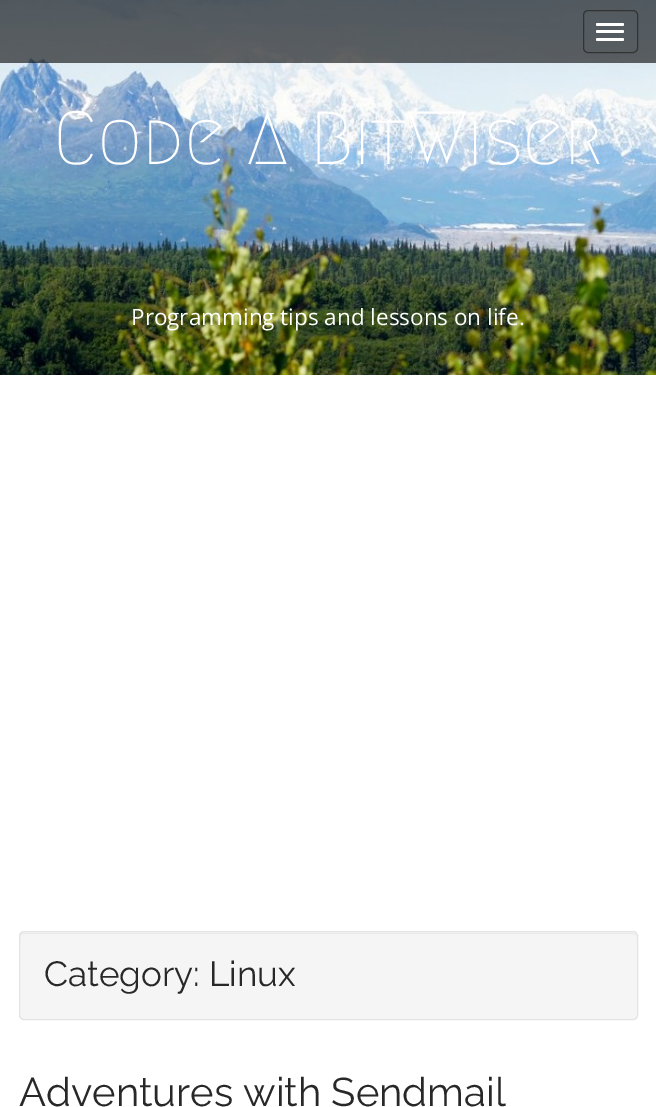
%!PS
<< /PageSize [656 1107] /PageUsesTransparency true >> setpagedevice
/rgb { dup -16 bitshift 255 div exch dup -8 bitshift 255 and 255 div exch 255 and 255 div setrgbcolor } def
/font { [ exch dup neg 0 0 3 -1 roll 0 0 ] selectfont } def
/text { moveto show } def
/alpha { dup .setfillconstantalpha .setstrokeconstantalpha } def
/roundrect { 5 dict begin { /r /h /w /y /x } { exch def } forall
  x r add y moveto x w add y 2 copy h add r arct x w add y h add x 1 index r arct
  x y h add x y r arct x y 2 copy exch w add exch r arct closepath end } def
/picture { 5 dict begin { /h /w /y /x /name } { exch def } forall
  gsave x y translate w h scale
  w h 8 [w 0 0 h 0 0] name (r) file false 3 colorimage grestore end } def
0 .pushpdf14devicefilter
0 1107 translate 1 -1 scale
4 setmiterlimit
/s1 { /Megrim-Medium 75 font 16#FFFFFF rgb } def
/s2 { /OpenSans-Regular 22.5 font 16#FFFFFF rgb } def
/s3 { /Raleway-Thin 35 font 16#282828 rgb } def
/s4 { /Raleway-Thin 40 font 16#282828 rgb } def
16#FFFFFF rgb
0 0 656 1107 rectfill
(pic1.raw) 0 0 656 375 picture
0.6 alpha
16#000000 rgb
0 0 656 63 rectfill
1 alpha
16#333333 rgb
583.5 10.5 54 42 4.5 roundrect stroke
16#FFFFFF rgb
596 23 28 3 1.5 roundrect fill
596 30 28 3 1.5 roundrect fill
596 38 28 3 1.5 roundrect fill
s1
(Code A BitWiser) 53 164 text
s2
(Programming tips and lessons on life.) 131 325 text
16#F5F5F5 rgb
19 931 619 89 5 roundrect fill
16#E9E9E9 rgb
24 934 moveto 632 934 lineto 635 934 636 935 636 938 curveto 636 937 lineto 636 935 634 933 632 933 curveto 24 933 lineto 22 933 20 935 20 937 curveto 20 938 lineto 20 935 22 934 24 934 curveto closepath fill
16#E3E3E3 rgb
19.5 931.5 618 88 4.5 roundrect stroke
s3
(Category: Linux) 44 986 text
s4
(Adventures with Sendmail) 19 1106 text
.poppdf14devicefilter showpage
